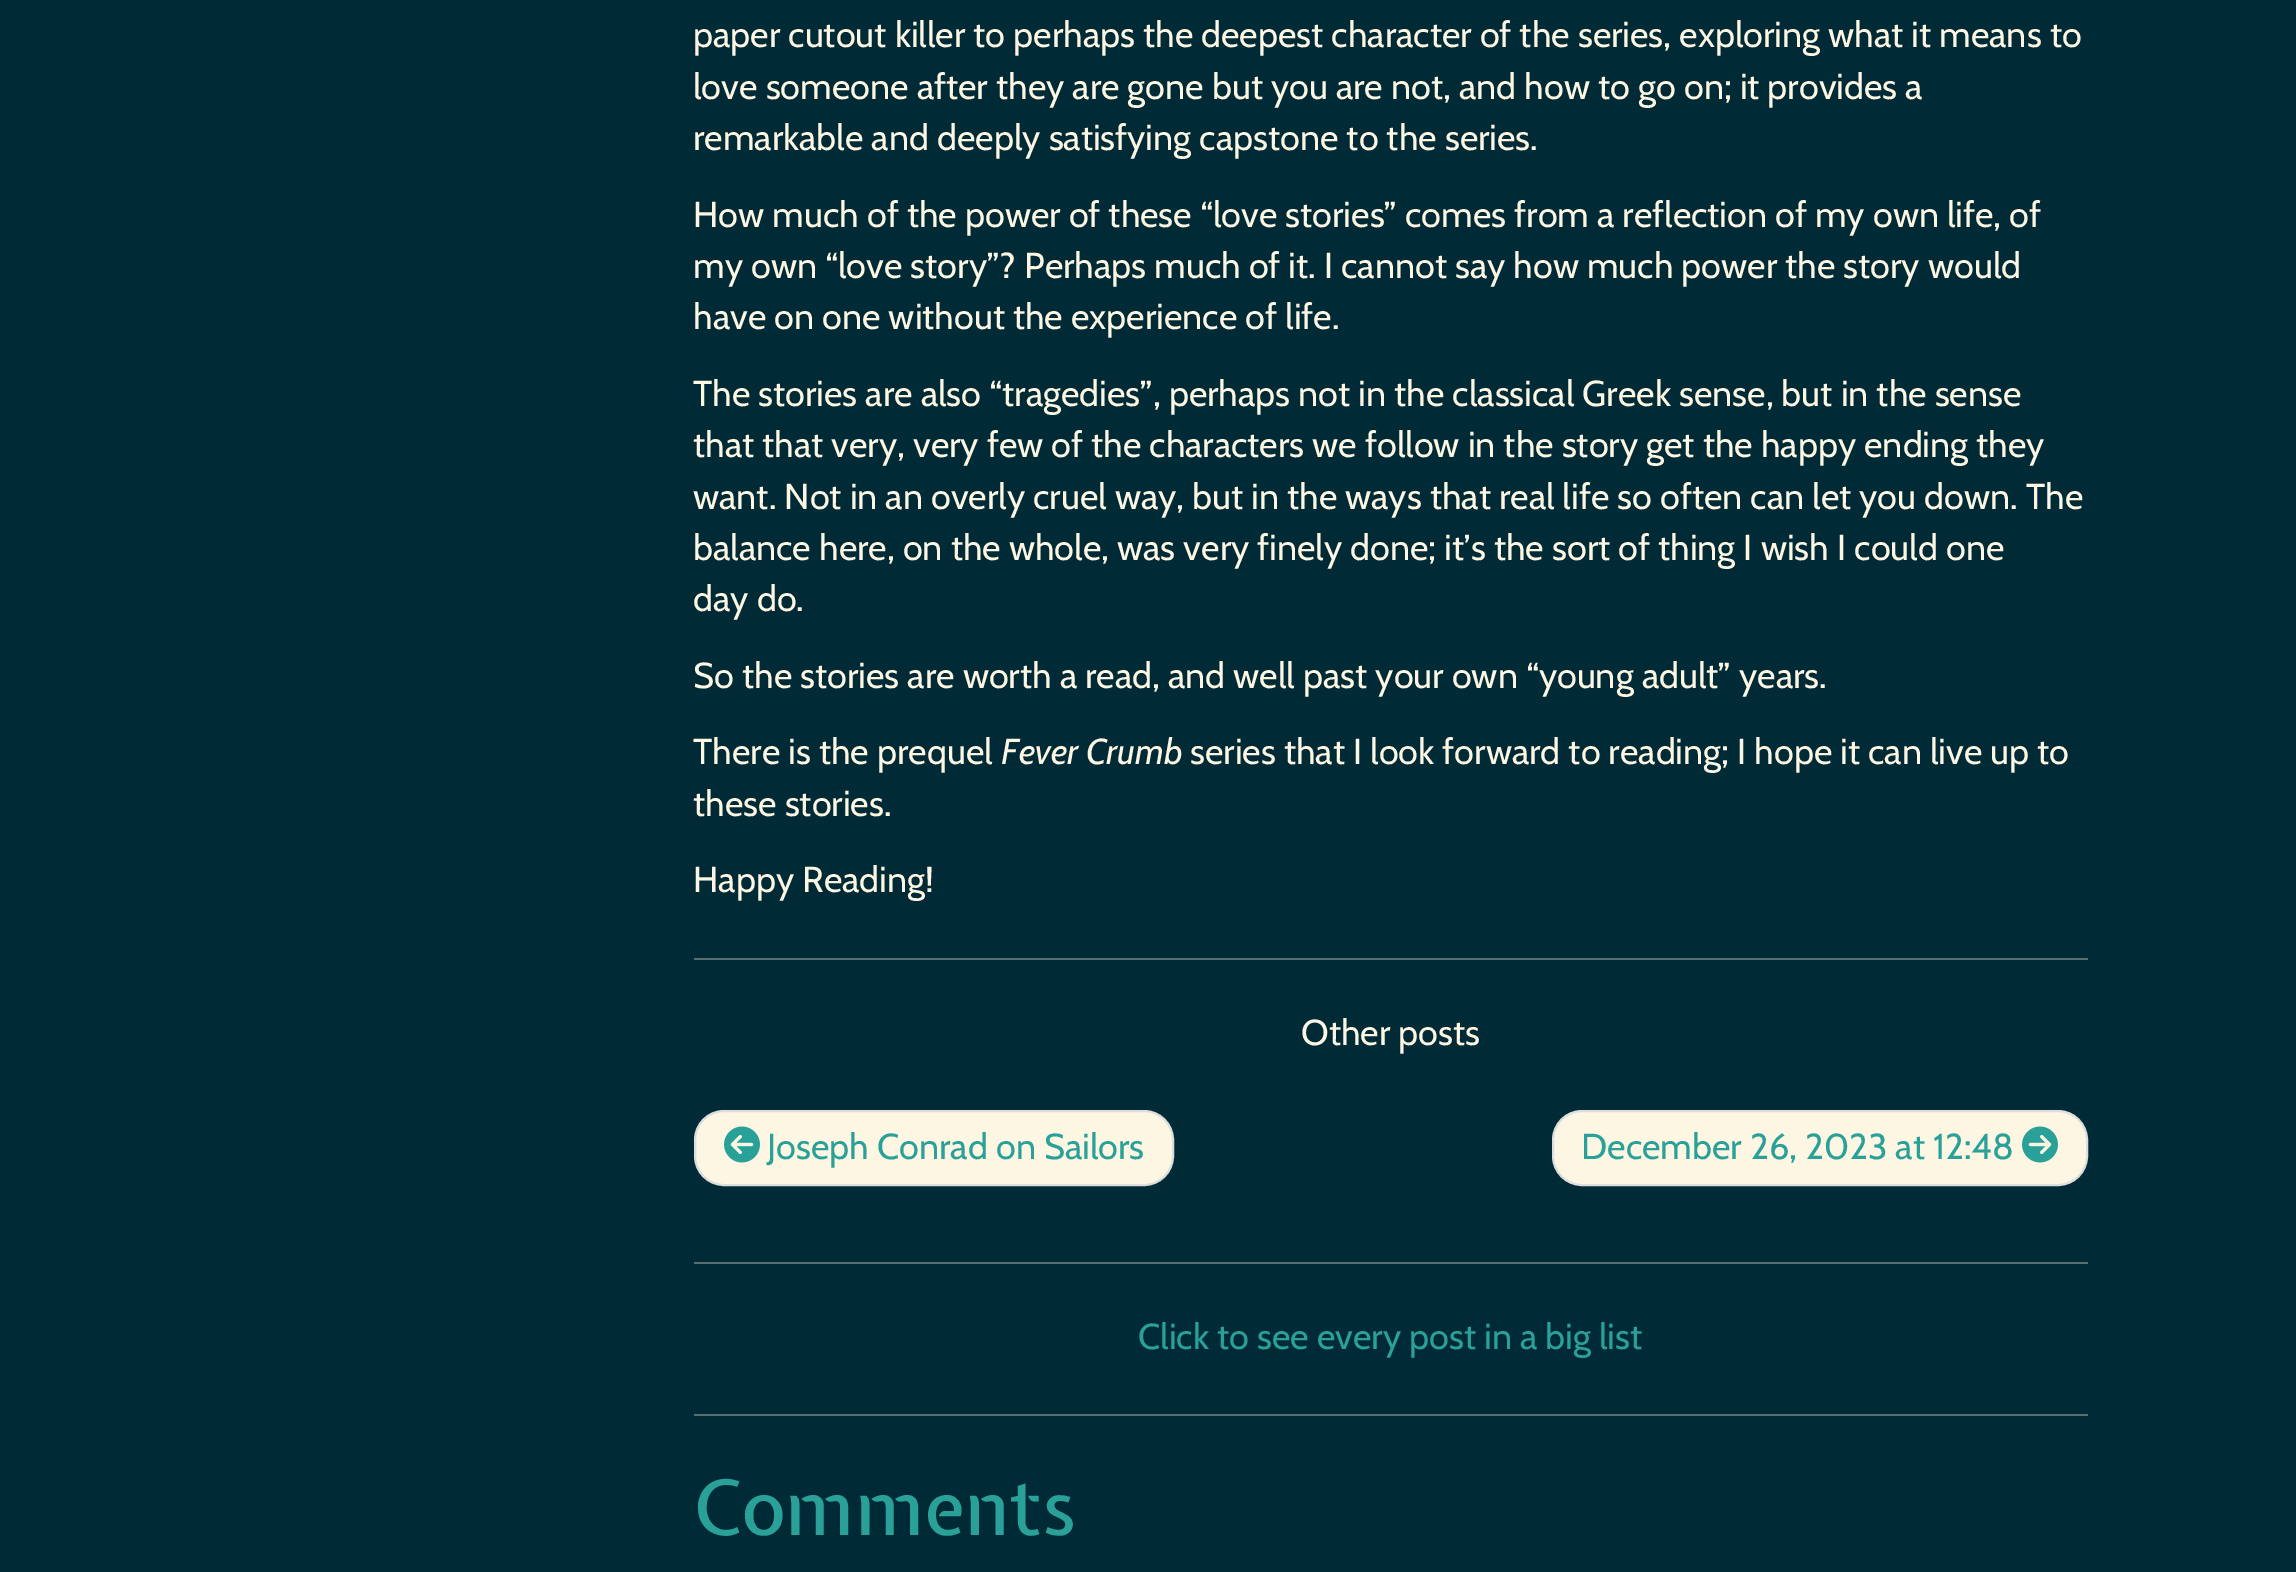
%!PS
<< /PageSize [2296 1572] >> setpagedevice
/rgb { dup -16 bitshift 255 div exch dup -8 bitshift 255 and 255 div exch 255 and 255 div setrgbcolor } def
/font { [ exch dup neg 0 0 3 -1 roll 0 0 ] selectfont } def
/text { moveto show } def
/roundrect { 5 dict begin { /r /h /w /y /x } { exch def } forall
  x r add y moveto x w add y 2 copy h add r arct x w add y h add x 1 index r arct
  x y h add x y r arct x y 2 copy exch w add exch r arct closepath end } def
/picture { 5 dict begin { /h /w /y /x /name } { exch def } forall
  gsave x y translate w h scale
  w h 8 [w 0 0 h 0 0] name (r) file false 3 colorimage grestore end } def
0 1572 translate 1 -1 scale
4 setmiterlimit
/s1 { /Cabin-Regular 36 font 16#FDF6E3 rgb } def
/s2 { /Cabin-Italic 36 font 16#FDF6E3 rgb } def
/s3 { /Cabin-Regular 36 font 16#2AA198 rgb } def
/s4 { /ExpletusSans-Medium 76 font 16#2AA198 rgb } def
16#002B36 rgb
0 0 2296 1572 rectfill
s1
(paper cutout killer to perhaps the deepest character of the series, exploring what it means to) 693 47 text
(love someone after they are gone but you are not, and how to go on; it provides a) 693 99 text
(remarkable and deeply satisfying capstone to the series.) 693 150 text
(How much of the power of these “love stories” comes from a reflection of my own life, of) 693 227 text
(my own “love story”? Perhaps much of it. I cannot say how much power the story would) 693 278 text
(have on one without the experience of life.) 693 329 text
(The stories are also “tragedies”, perhaps not in the classical Greek sense, but in the sense) 693 406 text
(that that very, very few of the characters we follow in the story get the happy ending they) 693 457 text
(want. Not in an overly cruel way, but in the ways that real life so often can let you down. The) 693 509 text
(balance here, on the whole, was very finely done; it’s the sort of thing I wish I could one) 693 560 text
(day do.) 693 611 text
(So the stories are worth a read, and well past your own “young adult” years.) 693 688 text
(There is the prequel) 693 764 text
s2
(Fever Crumb) 1001 764 text
s1
(series that I look forward to reading; I hope it can live up to) 1190 764 text
(these stories.) 693 816 text
(Happy Reading!) 693 892 text
16#586E75 rgb
694 958 1394 2 rectfill
s1
(Other posts) 1301 1045 text
695 1111 478 74 29 roundrect gsave fill grestore
16#DDDDDD rgb
2 setlinewidth
stroke
(pic1.raw) 724 1126 36 37 picture
s3
(Joseph Conrad on Sailors) 767 1159 text
16#FDF6E3 rgb
1553 1111 534 74 29 roundrect gsave fill grestore
16#DDDDDD rgb
stroke
s3
(December 26, 2023 at 12:48) 1581 1159 text
(pic2.raw) 2022 1126 36 37 picture
16#586E75 rgb
694 1262 1394 2 rectfill
s3
(Click to see every post in a big list) 1138 1349 text
16#586E75 rgb
694 1414 1394 2 rectfill
s4
(Comments) 693 1535 text
showpage
